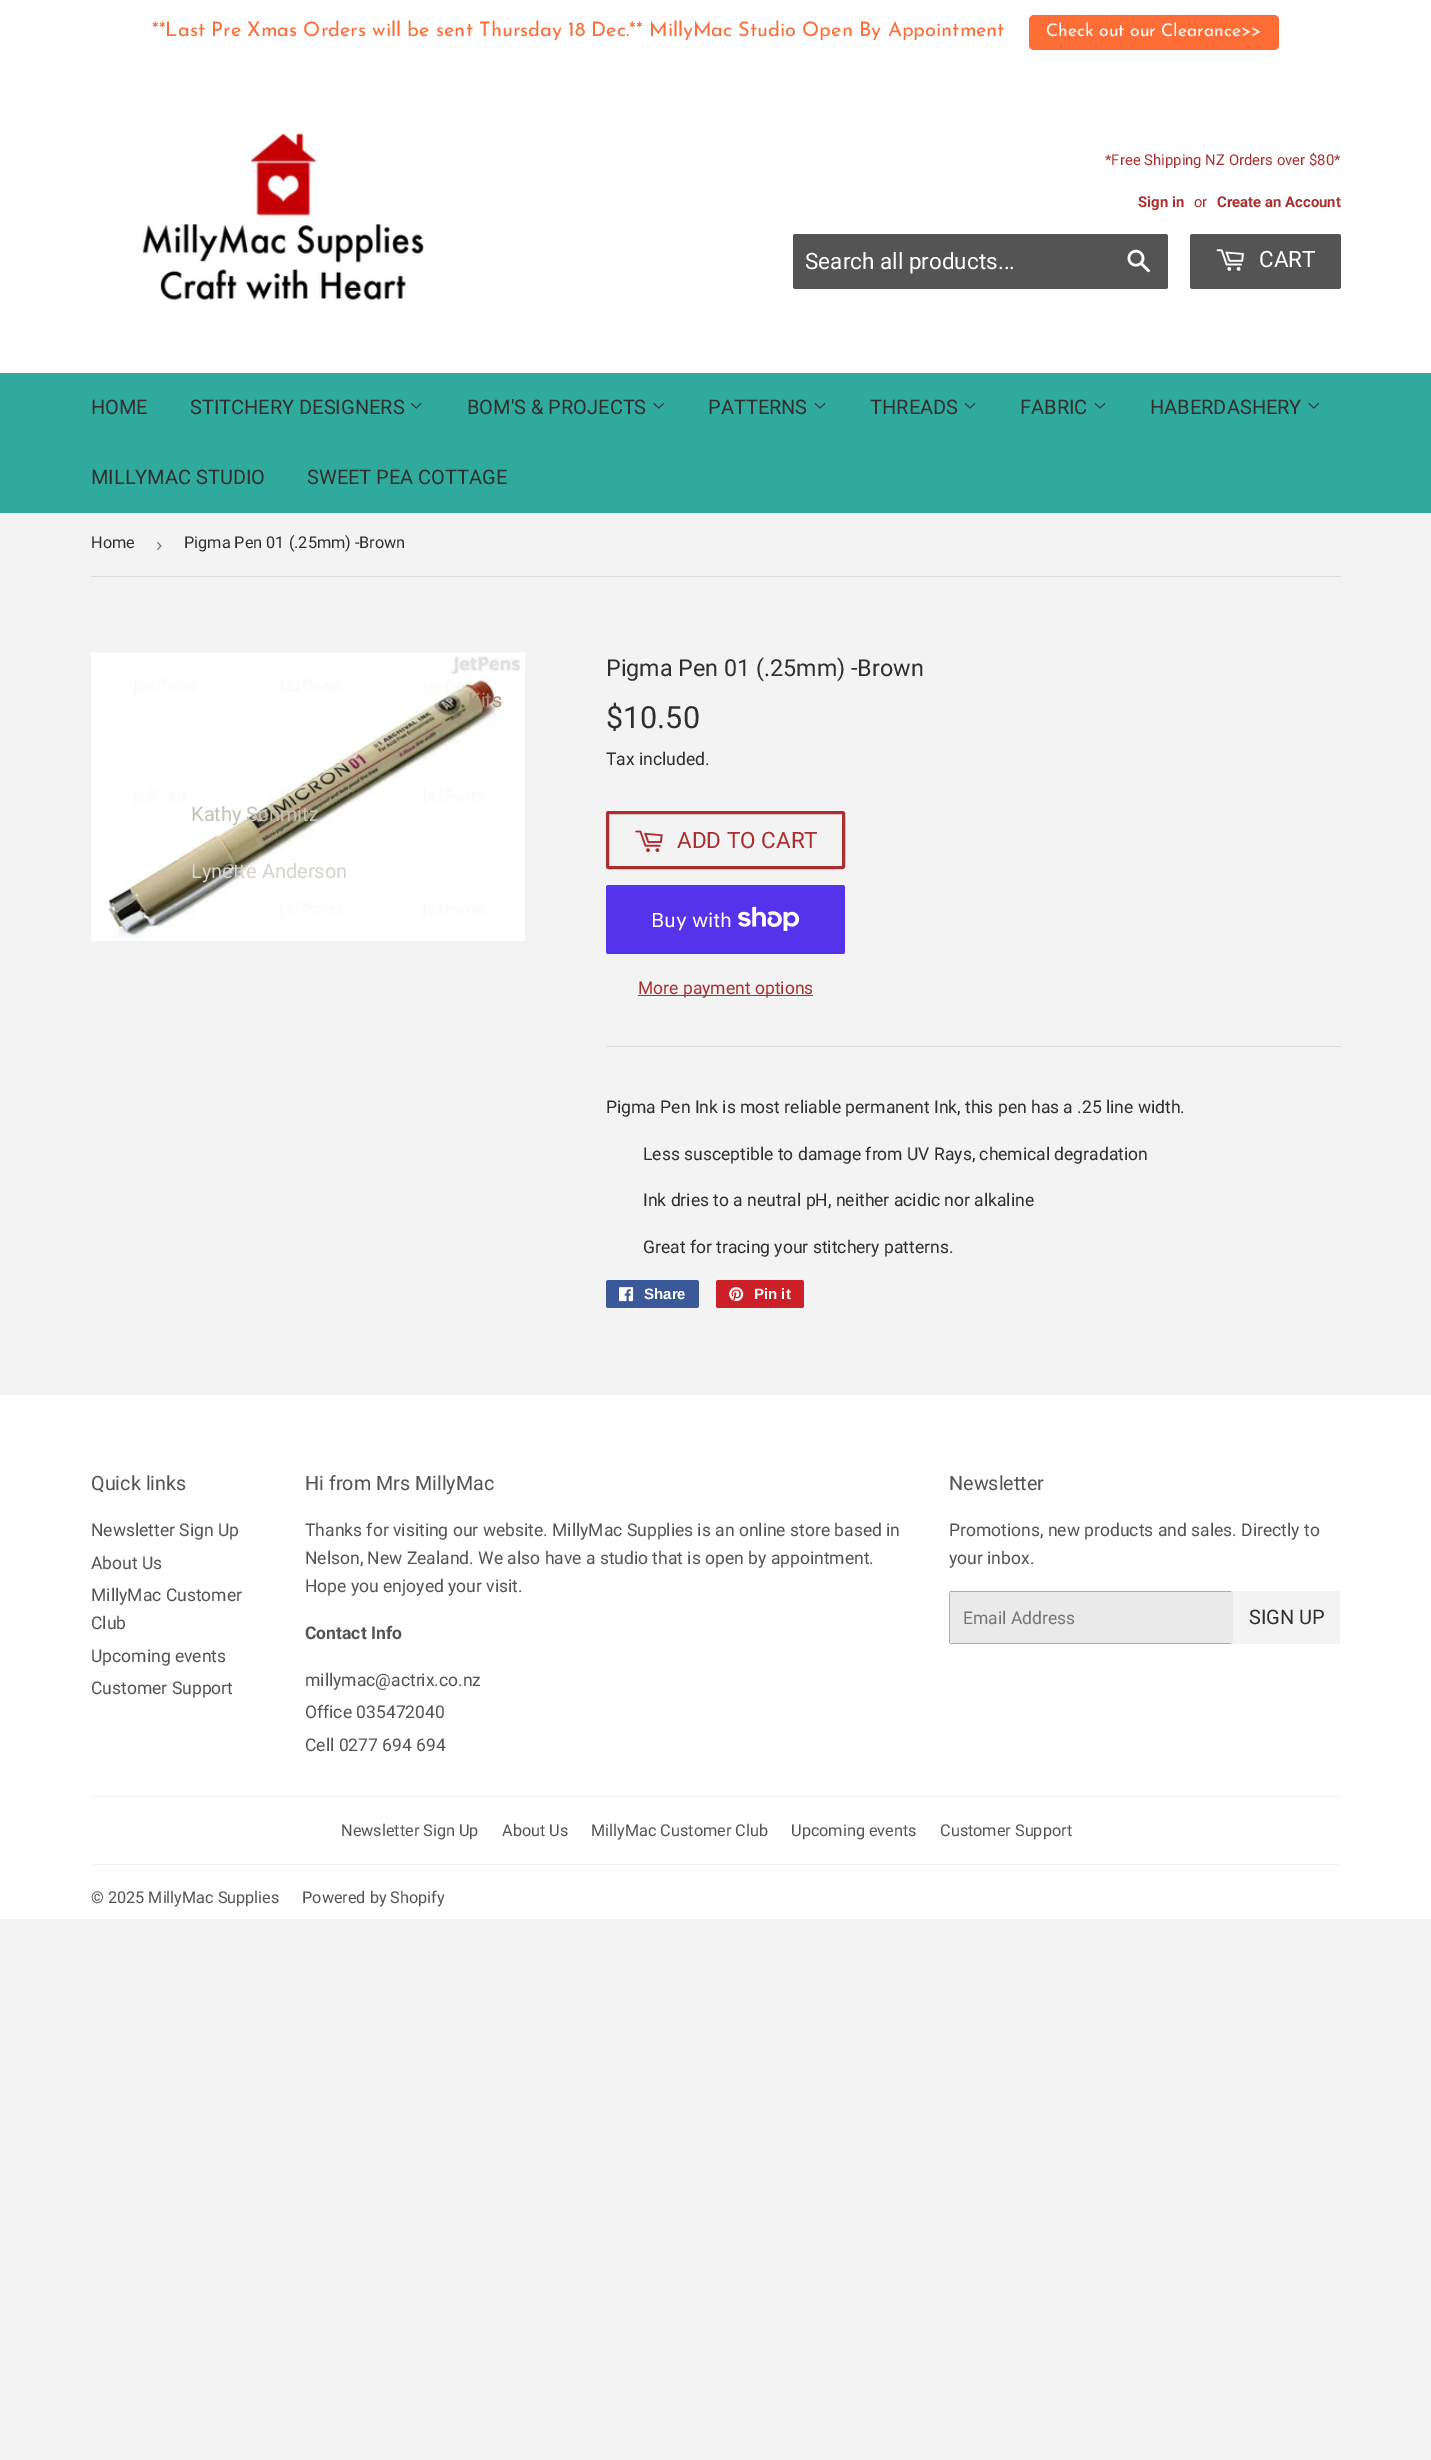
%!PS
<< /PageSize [1431 2460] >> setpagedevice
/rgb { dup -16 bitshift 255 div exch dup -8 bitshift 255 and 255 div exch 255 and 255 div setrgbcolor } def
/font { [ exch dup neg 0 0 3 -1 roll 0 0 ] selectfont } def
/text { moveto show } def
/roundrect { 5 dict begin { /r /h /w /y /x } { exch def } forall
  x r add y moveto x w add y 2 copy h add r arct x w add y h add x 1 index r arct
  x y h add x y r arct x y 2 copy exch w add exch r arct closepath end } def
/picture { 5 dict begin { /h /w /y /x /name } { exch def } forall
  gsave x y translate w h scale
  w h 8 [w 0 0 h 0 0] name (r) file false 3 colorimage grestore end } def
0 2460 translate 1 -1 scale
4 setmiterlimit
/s1 { /JosefinSans-Thin 20 font 16#FF6D37 rgb } def
/s2 { /JosefinSans-Thin 17.5 font 16#FFFFFF rgb } def
/s3 { /Roboto-Regular 14.9 font 16#AA3030 rgb } def
/s4 { /Roboto-Bold 14.9 font 16#AA3030 rgb } def
/s5 { /Roboto-Regular 22.5 font 16#FFFFFF rgb } def
/s6 { /Roboto-Regular 20 font 16#2F2F2F rgb } def
/s7 { /Roboto-Regular 20 font 16#C5C0B4 rgb } def
/s8 { /Roboto-Regular 20 font 16#D5D3CC rgb } def
/s9 { /Roboto-Regular 20 font 16#AC937D rgb } def
/s10 { /Roboto-Regular 16.25 font 16#2F2F2F rgb } def
/s11 { /LiberationSans-Regular 19 font 16#767676 rgb } def
/s12 { /Roboto-Regular 23.3 font 16#2F2F2F rgb } def
/s13 { /Roboto-Regular 30.5 font 16#2F2F2F rgb } def
/s14 { /Roboto-Regular 17.5 font 16#2F2F2F rgb } def
/s15 { /Roboto-Regular 22.5 font 16#AA3030 rgb } def
/s16 { /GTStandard-Regular 20 font 16#FFFFFF rgb } def
/s17 { /Roboto-Regular 17.5 font 16#AA3030 rgb } def
/s18 { /LiberationSans-Bold 15 font 16#FFFFFF rgb } def
/s19 { /Roboto-Regular 19.75 font 16#545454 rgb } def
/s20 { /Roboto-Regular 17.5 font 16#545454 rgb } def
/s21 { /Roboto-Bold 17.5 font 16#545454 rgb } def
/s22 { /Roboto-Regular 17.5 font 16#767676 rgb } def
/s23 { /Roboto-Regular 16.25 font 16#545454 rgb } def
16#F3F3F3 rgb
0 0 1431 2460 rectfill
16#FFFFFF rgb
0 0 1431 373 rectfill
s1
(**Last Pre Xmas Orders will be sent Thursday 18 Dec.** MillyMac Studio Open By Appointment) 152 36 text
1029 15 250 35 5 roundrect fill
s2
(Check out our Clearance>>) 1046 36 text
(pic1.raw) 142 132 282 170 picture
s3
(*Free Shipping NZ Orders over $80*) 1105 165 text
s4
(Sign in) 1138 207 text
s3
(or) 1194 207 text
s4
(Create an Account) 1217 207 text
16#545454 rgb
793 234 375 55 2.5 roundrect fill
s5
(Search all products...) 805 269 text
(pic2.raw) 1127 249 23 24 picture
16#545454 rgb
1190 234 151 55 2.5 roundrect fill
(pic3.raw) 1216 249 28 22 picture
s5
(CART) 1259 267 text
16#30AA9D rgb
0 373 1431 140 rectfill
s6
(HOME) 91 414 text
(STITCHERY DESIGNERS) 190 414 text
(pic4.raw) 410 402 12 7 picture
(pic7.raw) 91 652 434 289 picture
s7
(Kathy Schmitz) 191 821 text
s8
(Lynette Anderson) 191 878 text
s6
(BOM'S & PROJECTS) 467 414 text
(pic5.raw) 653 402 11 7 picture
s9
(Kits) 468 707 text
s6
(PATTERNS) 708 414 text
(pic6.raw) 814 402 12 7 picture
(THREADS) 870 414 text
(pic6.raw) 964 402 12 7 picture
(FABRIC) 1020 414 text
(pic6.raw) 1094 402 12 7 picture
(HABERDASHERY) 1150 414 text
(pic5.raw) 1308 402 11 7 picture
(MILLYMAC STUDIO) 91 484 text
(SWEET PEA COTTAGE) 307 484 text
16#DEDEDE rgb
91 576 1250 1 rectfill
s10
(Home) 91 548 text
s11
(›) 156 551 text
s10
(Pigma Pen 01 \(.25mm\) -Brown) 184 548 text
s12
(Pigma Pen 01 \(.25mm\) -Brown) 606 676 text
s13
($10.50) 606 728 text
s14
(Tax included.) 606 765 text
16#AA3030 rgb
3 setlinewidth
607.5 812.5 236 55 1 roundrect stroke
(pic8.raw) 635 830 28 23 picture
s15
(ADD TO CART) 677 848 text
16#5433EB rgb
606 885 239 69 2.5 roundrect fill
s16
(Buy with) 651 927 text
(pic9.raw) 738 906 62 25 picture
16#AA3030 rgb
638 995 175 1 rectfill
s17
(More payment options) 638 994 text
16#DEDEDE rgb
606 1046 735 1 rectfill
s14
(Pigma Pen Ink is most reliable permanent Ink, this pen has a .25 line width.) 606 1113 text
(Less susceptible to damage from UV Rays, chemical degradation) 643 1160 text
(Ink dries to a neutral pH, neither acidic nor alkaline) 643 1206 text
(Great for tracing your stitchery patterns.) 643 1253 text
16#3B5998 rgb
606 1280 93 28 2.5 roundrect fill
(pic10.raw) 619 1287 15 15 picture
s18
(Share) 644 1299 text
16#CB2027 rgb
716 1280 88 28 2.5 roundrect fill
(pic11.raw) 729 1287 15 15 picture
s18
(Pin it) 754 1299 text
0 1395 1431 524 rectfill
s19
(Quick links) 91 1490 text
s20
(Newsletter Sign Up) 91 1536 text
(About Us) 91 1569 text
(MillyMac Customer) 91 1601 text
(Club) 91 1629 text
(Upcoming events) 91 1662 text
(Customer Support) 91 1694 text
s19
(Hi from Mrs MillyMac) 305 1490 text
s20
(Thanks for visiting our website. MillyMac Supplies is an online store based in) 305 1536 text
(Nelson, New Zealand. We also have a studio that is open by appointment.) 305 1564 text
(Hope you enjoyed your visit.) 305 1592 text
s21
(Contact Info) 305 1639 text
s20
(millymac@actrix.co.nz) 305 1686 text
(Office 035472040) 305 1718 text
(Cell 0277 694 694) 305 1751 text
s19
(Newsletter) 949 1490 text
s20
(Promotions, new products and sales. Directly to) 949 1536 text
(your inbox.) 949 1564 text
16#EAEAEA rgb
949 1591 284 53 2.5 roundrect fill
16#ABABAB rgb
950 1591 281 1 rectfill
950 1643 281 1 rectfill
949 1593 1 50 rectfill
s22
(Email Address) 963 1624 text
16#F3F3F3 rgb
1233 1591 moveto 1337.5 1591 lineto 1339 1591 1340 1592 1340 1593.5 curveto 1340 1641.5 lineto 1340 1643 1339 1644 1337.5 1644 curveto 1233 1644 lineto closepath fill
s6
(SIGN UP) 1249 1624 text
16#F2F2F2 rgb
91 1796 1250 1 rectfill
s23
(Newsletter Sign Up) 341 1836 text
(About Us) 502 1836 text
(MillyMac Customer Club) 591 1836 text
(Upcoming events) 791 1836 text
(Customer Support) 940 1836 text
16#F2F2F2 rgb
91 1864 1250 1 rectfill
s23
(© 2025 MillyMac Supplies) 91 1903 text
(Powered by Shopify) 302 1903 text
showpage
